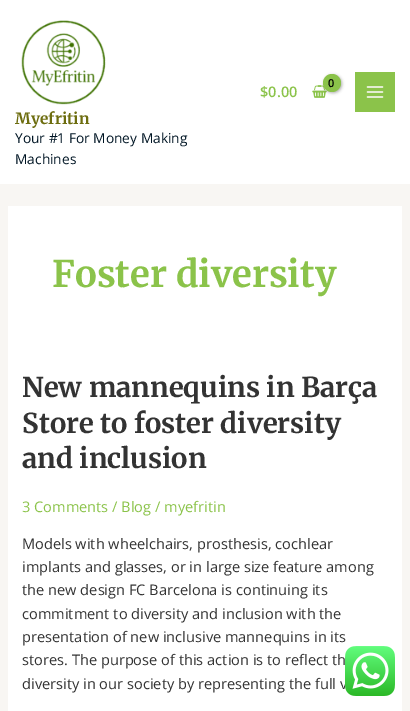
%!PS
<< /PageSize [410 711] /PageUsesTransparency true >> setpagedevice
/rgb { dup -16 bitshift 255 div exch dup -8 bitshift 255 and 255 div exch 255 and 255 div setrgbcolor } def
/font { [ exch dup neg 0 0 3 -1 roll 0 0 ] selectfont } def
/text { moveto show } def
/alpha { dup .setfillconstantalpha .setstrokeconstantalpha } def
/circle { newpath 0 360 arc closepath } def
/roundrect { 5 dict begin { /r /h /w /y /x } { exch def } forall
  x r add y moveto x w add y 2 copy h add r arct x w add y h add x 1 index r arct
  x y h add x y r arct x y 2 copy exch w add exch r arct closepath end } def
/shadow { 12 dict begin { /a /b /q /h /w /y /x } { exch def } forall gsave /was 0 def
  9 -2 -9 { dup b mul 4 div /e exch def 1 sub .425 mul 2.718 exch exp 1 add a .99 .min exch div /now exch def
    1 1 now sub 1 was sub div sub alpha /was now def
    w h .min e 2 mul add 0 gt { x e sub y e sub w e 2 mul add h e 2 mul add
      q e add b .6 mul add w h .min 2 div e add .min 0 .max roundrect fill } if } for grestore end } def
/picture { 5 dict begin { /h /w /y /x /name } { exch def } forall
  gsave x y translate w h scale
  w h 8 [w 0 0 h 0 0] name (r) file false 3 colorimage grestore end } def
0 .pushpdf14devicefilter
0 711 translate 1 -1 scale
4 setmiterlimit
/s1 { /OpenSans-SemiBold 11 font 16#000000 rgb } def
/s2 { /OpenSans-SemiBold 14.6 font 16#8BC34A rgb } def
/s3 { /Merriweather-Light 15.5 font 16#6D6D0F rgb } def
/s4 { /OpenSans-Regular 13.75 font 16#001524 rgb } def
/s5 { /Merriweather-Light 36.5 font 16#8BC34A rgb } def
/s6 { /Merriweather-Light 27.4 font 16#333333 rgb } def
/s7 { /OpenSans-Regular 14.6 font 16#8BC34A rgb } def
/s8 { /OpenSans-Regular 14.6 font 16#333333 rgb } def
16#F8F6F3 rgb
0 0 410 711 rectfill
16#FFFFFF rgb
0 0 410 184 rectfill
(pic1.raw) 312 85 15 13 picture
16#000000 rgb
324 75 18 18 9 1.5 0.3 shadow
16#8BC34A rgb
332 83 9 circle fill
s1
(0) 328 87 text
s2
($0.00) 260 97 text
355 72 40 40 rectfill
(pic2.raw) 366 86 18 12 picture
(pic3.raw) 21 20 85 85 picture
s3
(Myefritin) 15 124 text
s4
(Your #1 For Money Making) 15 143 text
(Machines) 15 164 text
16#FFFFFF rgb
8 206 394 505 rectfill
s5
(Foster diversity) 52 287 text
s6
(New mannequins in Barça) 22 397 text
(Store to foster diversity) 22 433 text
(and inclusion) 22 468 text
s7
(3 Comments / Blog / myefritin) 22 512 text
s8
(Models with wheelchairs, prosthesis, cochlear) 22 549 text
(implants and glasses, or in large size feature among) 22 572 text
(the new design FC Barcelona is continuing its) 22 595 text
(commitment to diversity and inclusion with the) 22 619 text
(presentation of new inclusive mannequins in its) 22 642 text
(stores. The purpose of this action is to reflect th) 22 665 text
(diversity in our society by representing the full v) 22 689 text
(pic4.raw) 345 646 50 50 picture
.poppdf14devicefilter showpage
